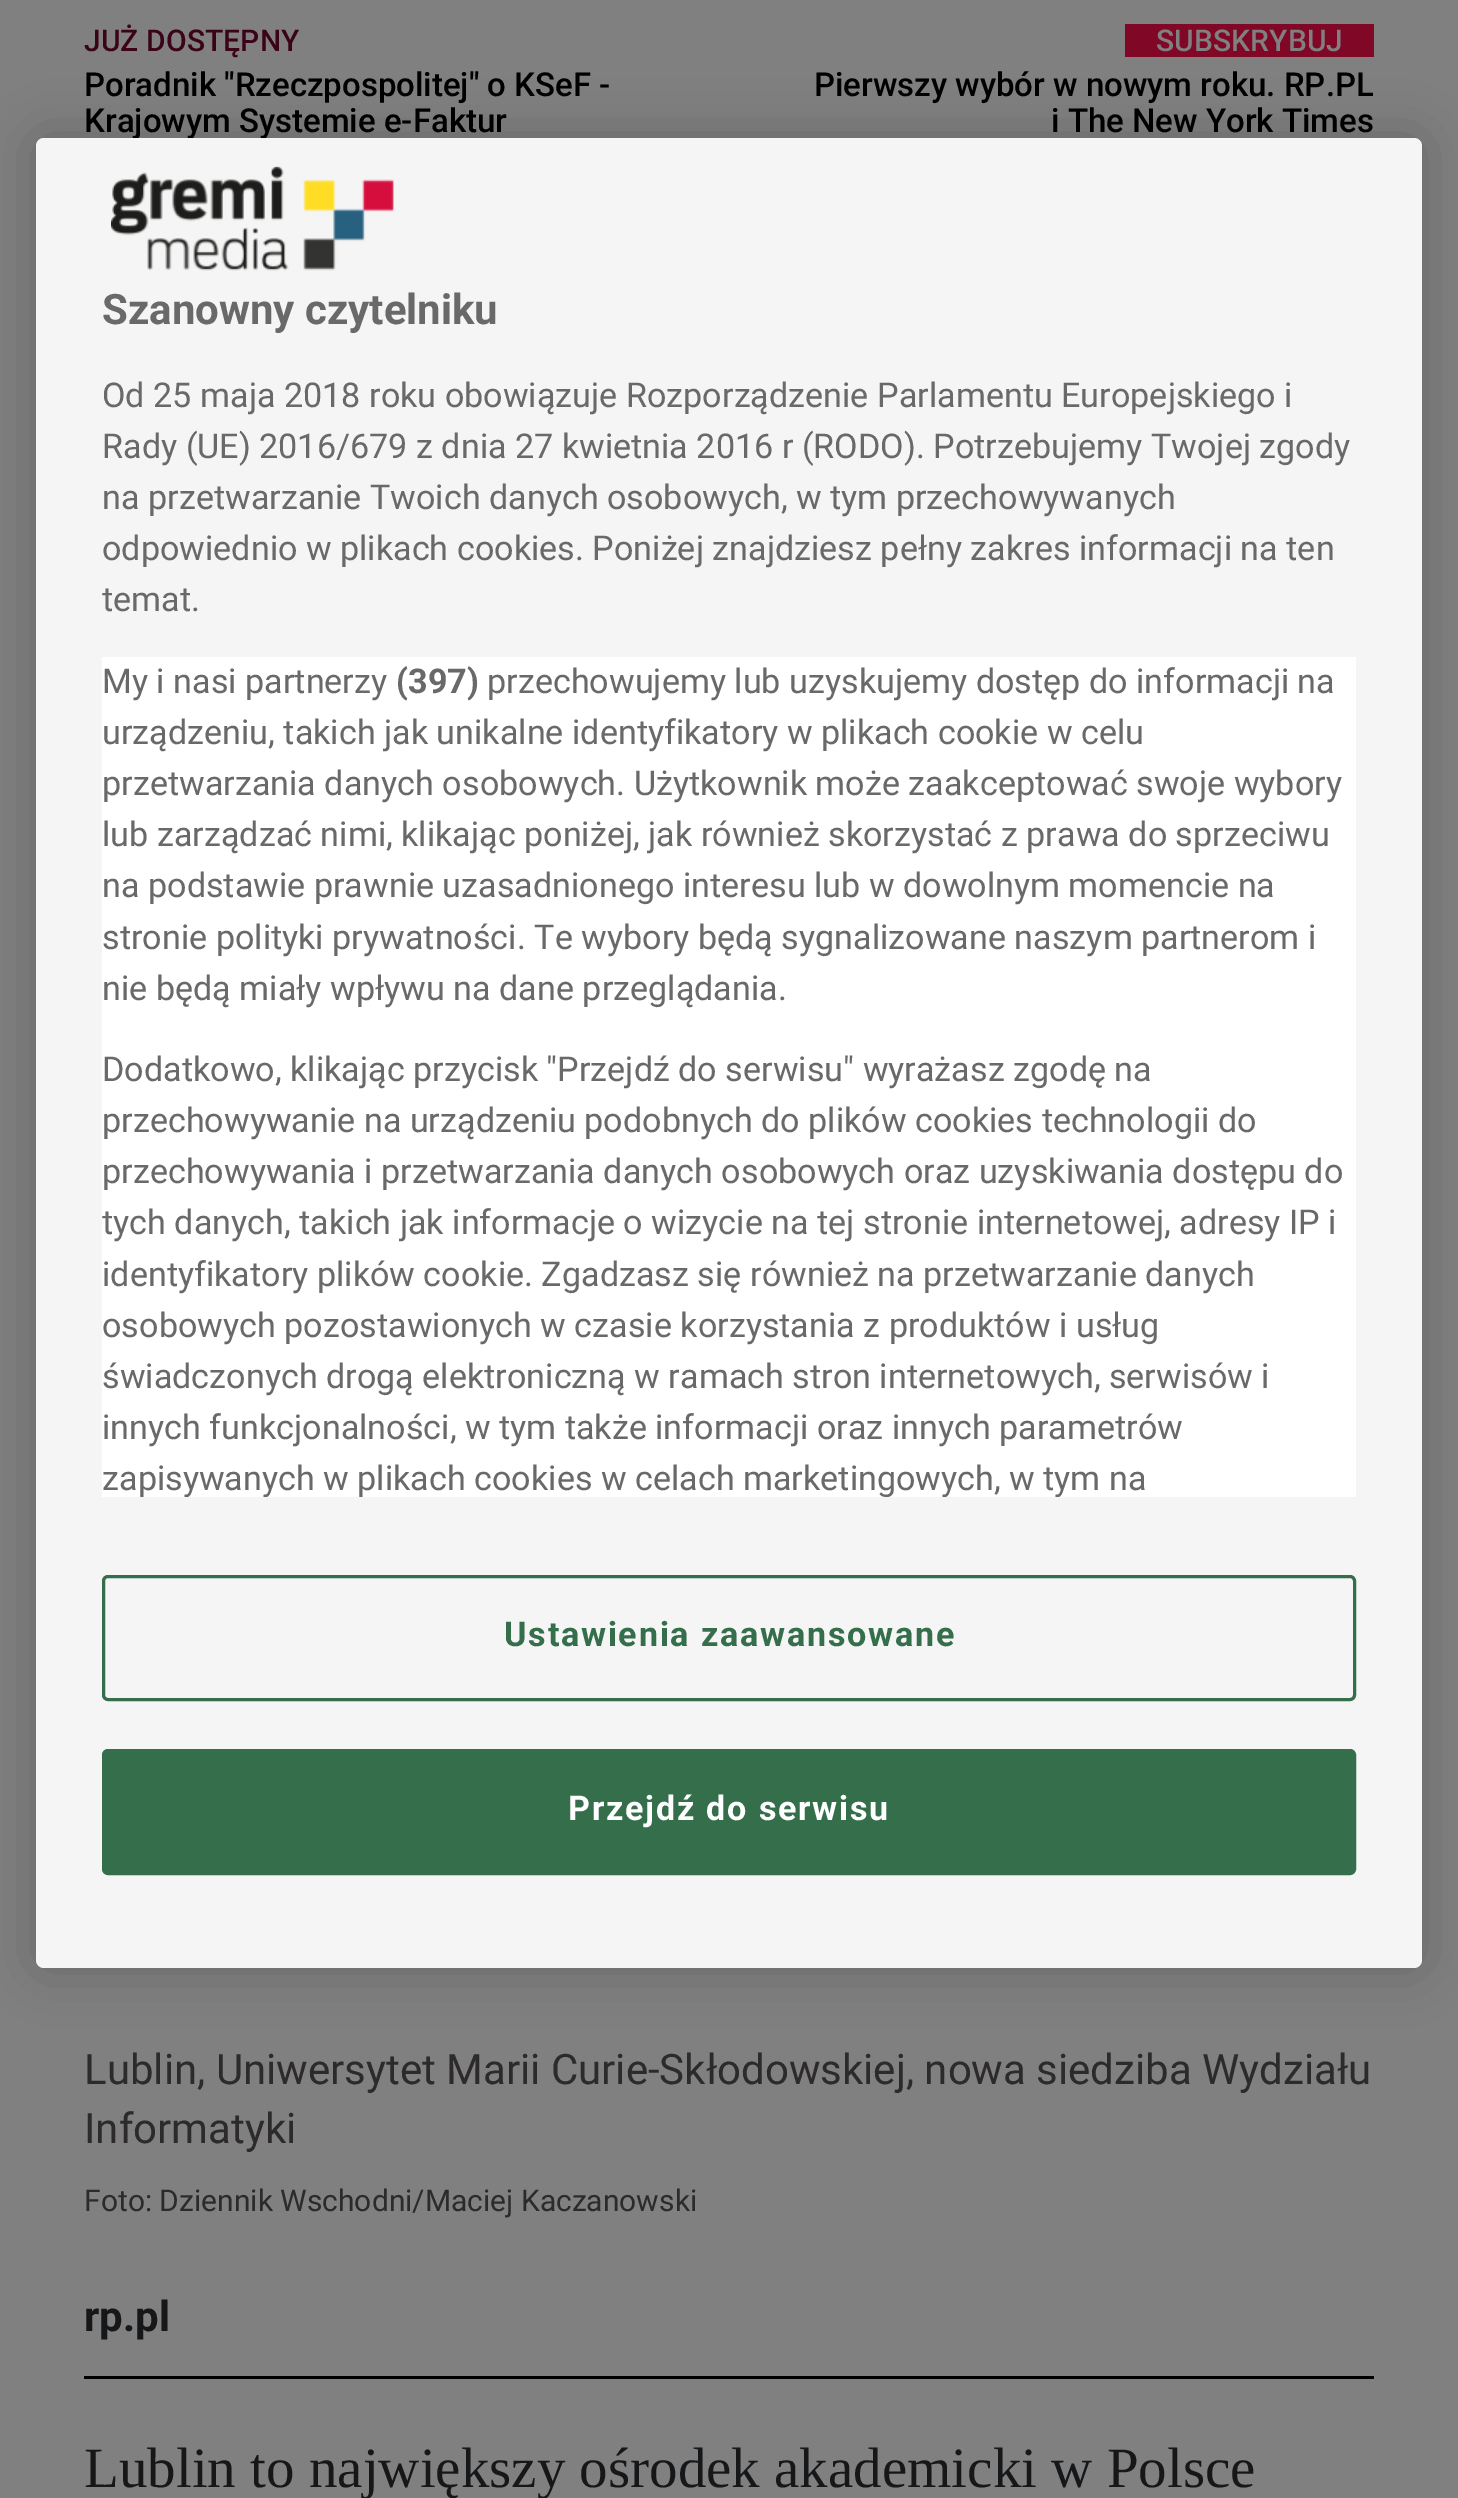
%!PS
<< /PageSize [1458 2498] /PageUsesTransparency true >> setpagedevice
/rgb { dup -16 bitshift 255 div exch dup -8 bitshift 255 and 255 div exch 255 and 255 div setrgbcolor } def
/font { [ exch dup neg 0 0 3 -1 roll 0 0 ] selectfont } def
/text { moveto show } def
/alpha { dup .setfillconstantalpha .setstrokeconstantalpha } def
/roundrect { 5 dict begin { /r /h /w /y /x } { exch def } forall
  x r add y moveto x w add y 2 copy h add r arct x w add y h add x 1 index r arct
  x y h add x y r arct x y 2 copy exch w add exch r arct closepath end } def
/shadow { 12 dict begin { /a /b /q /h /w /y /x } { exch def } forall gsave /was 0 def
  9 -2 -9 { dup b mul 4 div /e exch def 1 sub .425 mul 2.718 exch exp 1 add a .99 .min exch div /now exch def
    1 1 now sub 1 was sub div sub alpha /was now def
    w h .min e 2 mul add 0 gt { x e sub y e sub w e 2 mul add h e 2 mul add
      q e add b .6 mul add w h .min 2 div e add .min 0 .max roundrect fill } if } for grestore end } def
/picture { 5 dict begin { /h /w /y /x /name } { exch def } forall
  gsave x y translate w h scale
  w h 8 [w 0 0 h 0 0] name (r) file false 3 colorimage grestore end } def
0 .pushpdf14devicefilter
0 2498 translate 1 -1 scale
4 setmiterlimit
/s1 { /Roboto-Medium 33 font 16#000000 rgb } def
/s2 { /Roboto-Regular 42 font 16#2C2A2B rgb } def
/s3 { /Roboto-Regular 30 font 16#2C2A2B rgb } def
/s4 { /Roboto-Bold 42 font 16#161718 rgb } def
/s5 { /LiberationSerif-Regular 57 font 16#161718 rgb } def
/s6 { /Roboto-Bold 42 font 16#696969 rgb } def
/s7 { /Roboto-Regular 34.15 font 16#696969 rgb } def
/s8 { /Roboto-Bold 34.15 font 16#696969 rgb } def
16#808080 rgb
0 0 1458 2498 rectfill
/Roboto-Medium 30 font
16#3B0317 rgb
84 51 moveto 0.1 0 (JUŻ DOSTĘPNY) ashow
s1
(Poradnik "Rzeczpospolitej" o KSeF -) 84 96 text
(Krajowym Systemie e-Faktur) 84 132 text
16#800725 rgb
1125 24 249 33 rectfill
/Roboto-Medium 30 font
16#808080 rgb
1156 51 moveto 0.1 0 (SUBSKRYBUJ) ashow
s1
(Pierwszy wybór w nowym roku. RP.PL) 814 96 text
(i The New York Times) 1051 132 text
s2
(Lublin, Uniwersytet Marii Curie-Skłodowskiej, nowa siedziba Wydziału) 84 2084 text
(Informatyki) 84 2143 text
s3
(Foto: Dziennik Wschodni/Maciej Kaczanowski) 84 2211 text
16#000000 rgb
84 2376 1290 3 rectfill
s4
(rp.pl) 84 2331 text
s5
(Lublin to największy ośrodek akademicki w Polsce) 84 2487 text
16#000000 rgb
36 138 1386 1830 8 27 0.2 shadow
16#F5F5F5 rgb
36 138 1386 1830 8 roundrect fill
(pic1.raw) 111 166 283 105 picture
s6
(Szanowny czytelniku) 102 324 text
s7
(Od 25 maja 2018 roku obowiązuje Rozporządzenie Parlamentu Europejskiego i) 102 407 text
(Rady \(UE\) 2016/679 z dnia 27 kwietnia 2016 r \(RODO\). Potrzebujemy Twojej zgody) 102 458 text
(na przetwarzanie Twoich danych osobowych, w tym przechowywanych) 102 509 text
(odpowiednio w plikach cookies. Poniżej znajdziesz pełny zakres informacji na ten) 102 560 text
(temat.) 102 611 text
16#FFFFFF rgb
102 657 1254 840 rectfill
s7
(My i nasi partnerzy) 102 693 text
s8
(\(397\)) 396 693 text
s7
(przechowujemy lub uzyskujemy dostęp do informacji na) 487 693 text
(urządzeniu, takich jak unikalne identyfikatory w plikach cookie w celu) 102 744 text
(przetwarzania danych osobowych. Użytkownik może zaakceptować swoje wybory) 102 795 text
(lub zarządzać nimi, klikając poniżej, jak również skorzystać z prawa do sprzeciwu) 102 846 text
(na podstawie prawnie uzasadnionego interesu lub w dowolnym momencie na) 102 897 text
(stronie polityki prywatności. Te wybory będą sygnalizowane naszym partnerom i) 102 949 text
(nie będą miały wpływu na dane przeglądania.) 102 1000 text
(Dodatkowo, klikając przycisk "Przejdź do serwisu" wyrażasz zgodę na) 102 1081 text
(przechowywanie na urządzeniu podobnych do plików cookies technologii do) 102 1132 text
(przechowywania i przetwarzania danych osobowych oraz uzyskiwania dostępu do) 102 1183 text
(tych danych, takich jak informacje o wizycie na tej stronie internetowej, adresy IP i) 102 1234 text
(identyfikatory plików cookie. Zgadzasz się również na przetwarzanie danych) 102 1286 text
(osobowych pozostawionych w czasie korzystania z produktów i usług) 102 1337 text
(świadczonych drogą elektroniczną w ramach stron internetowych, serwisów i) 102 1388 text
(innych funkcjonalności, w tym także informacji oraz innych parametrów) 102 1439 text
gsave
102 657 1254 840 rectclip
(zapisywanych w plikach cookies w celach marketingowych, w tym na) 102 1490 text
grestore
16#346E4A rgb
3 setlinewidth
103.5 1576.5 1251 123 4.5 roundrect stroke
/Roboto-Bold 34.15 font
504 1646 moveto 1.75 0 (Ustawienia zaawansowane) ashow
103.5 1750.5 1251 123 4.5 roundrect gsave fill grestore
stroke
16#FFFFFF rgb
568 1820 moveto 1.75 0 (Przejdź do serwisu) ashow
.poppdf14devicefilter showpage
